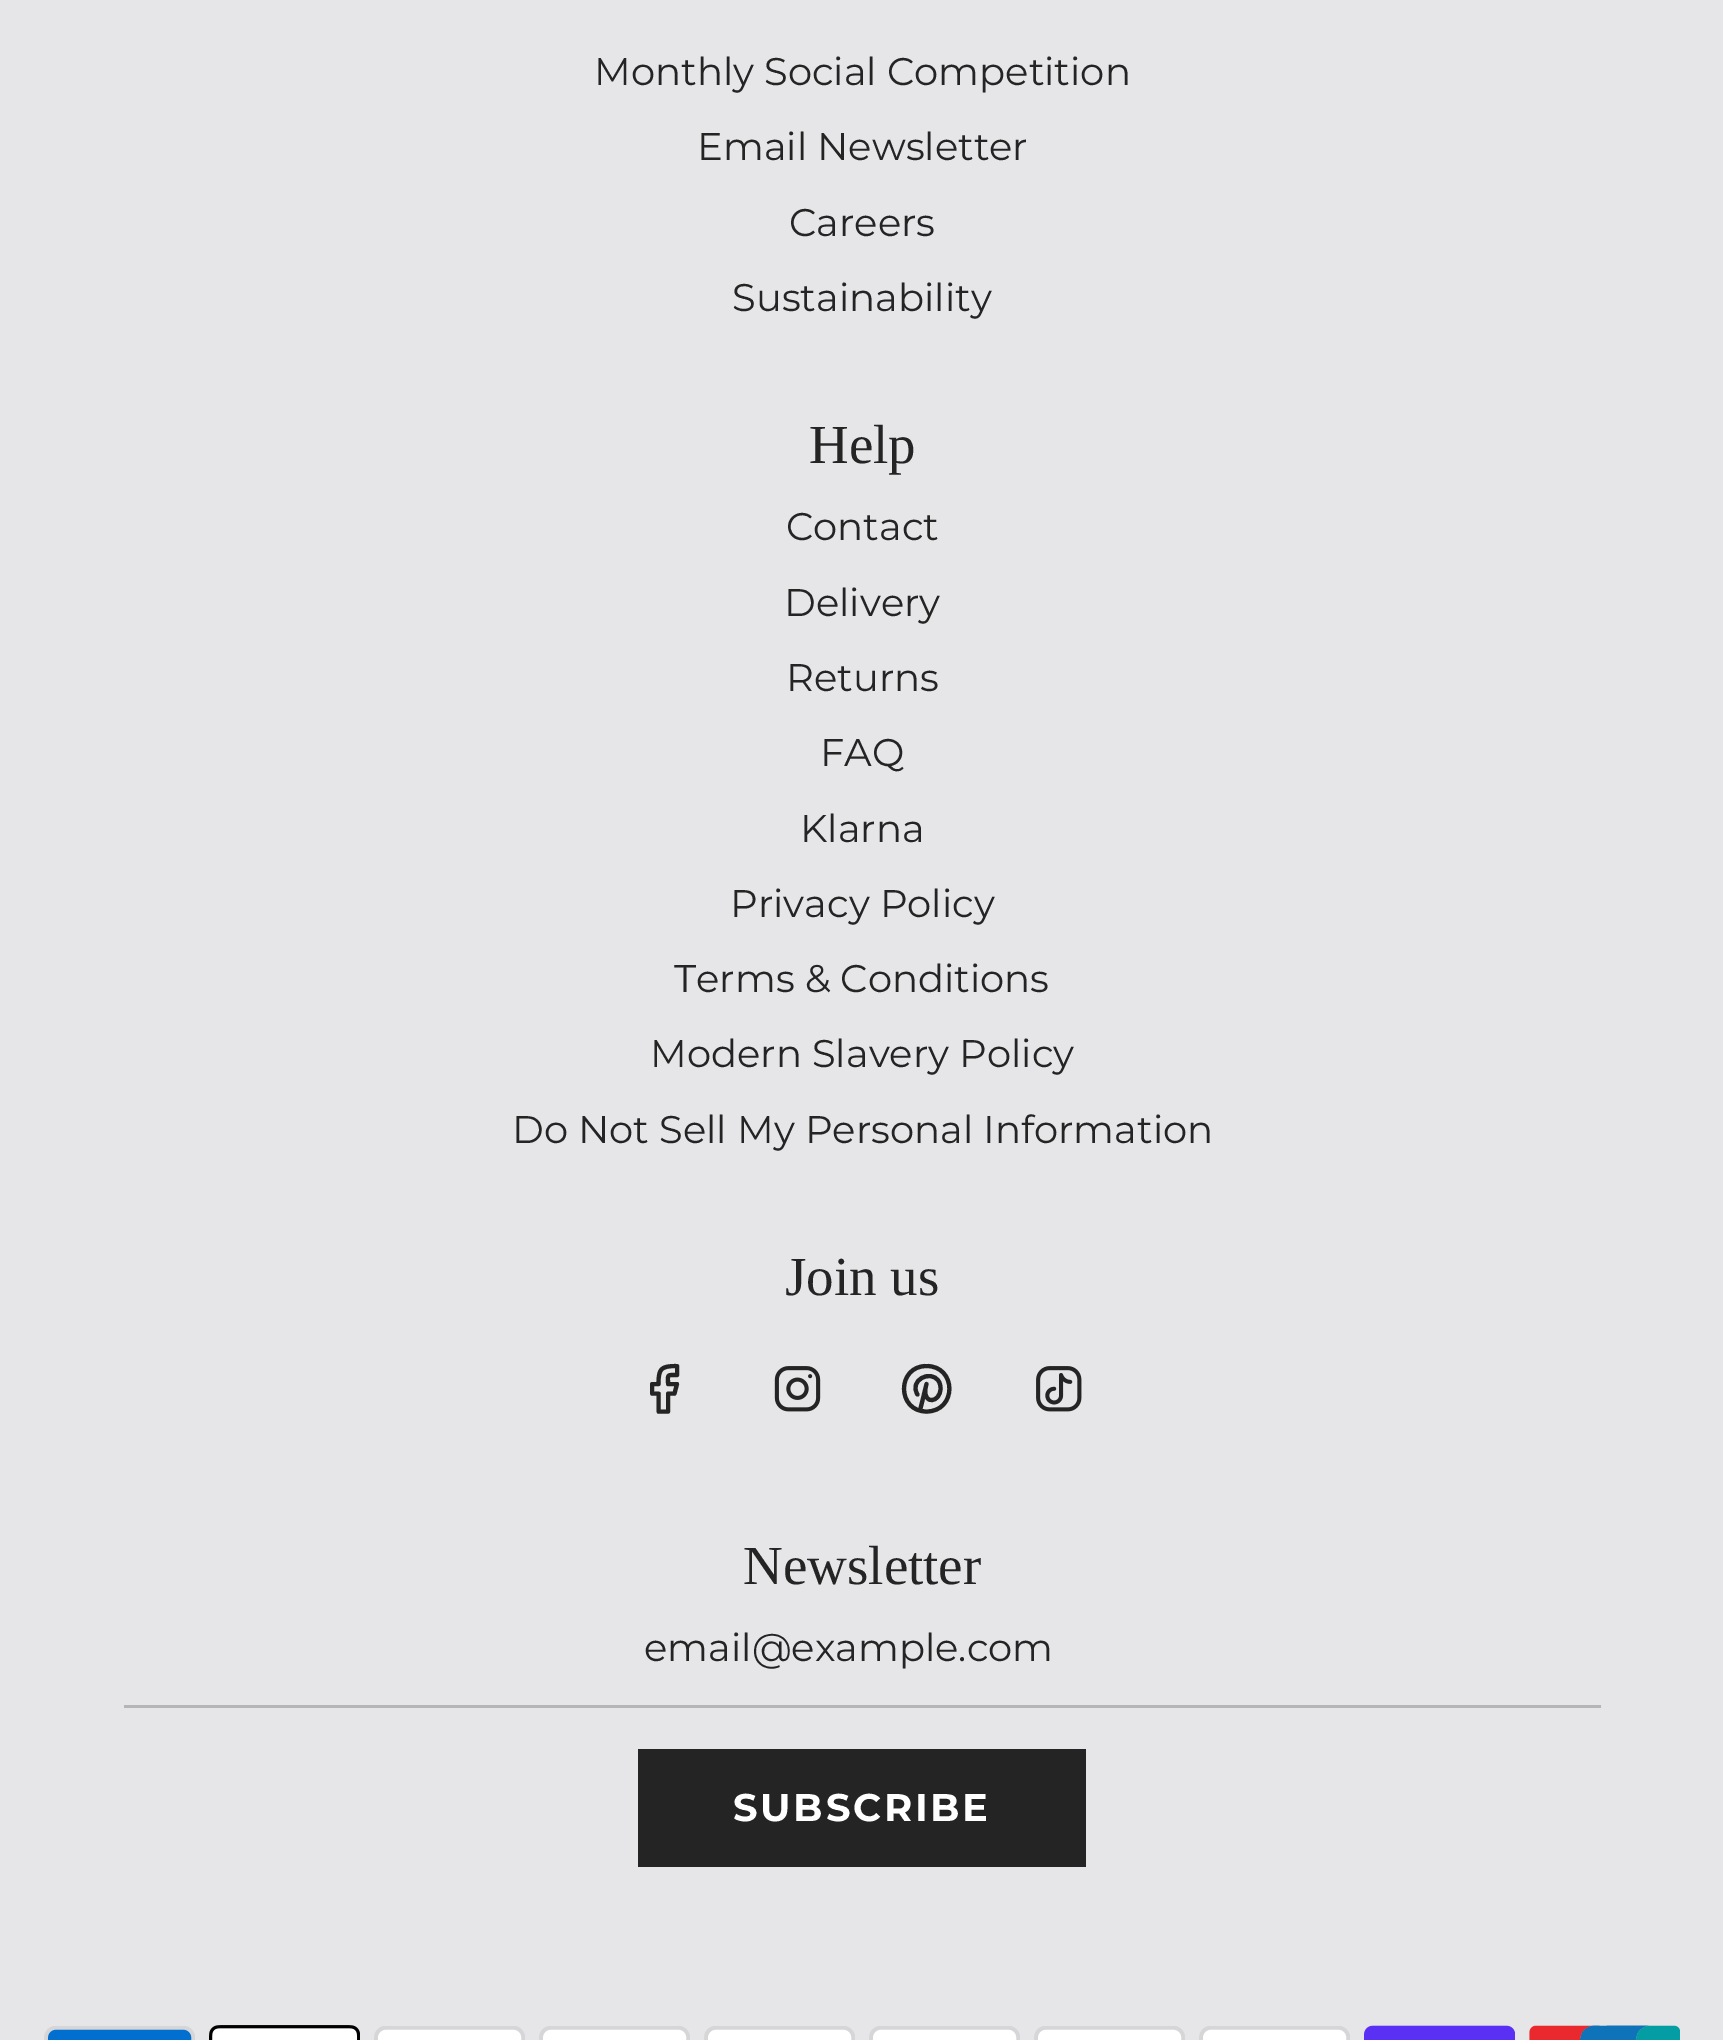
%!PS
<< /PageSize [1723 2040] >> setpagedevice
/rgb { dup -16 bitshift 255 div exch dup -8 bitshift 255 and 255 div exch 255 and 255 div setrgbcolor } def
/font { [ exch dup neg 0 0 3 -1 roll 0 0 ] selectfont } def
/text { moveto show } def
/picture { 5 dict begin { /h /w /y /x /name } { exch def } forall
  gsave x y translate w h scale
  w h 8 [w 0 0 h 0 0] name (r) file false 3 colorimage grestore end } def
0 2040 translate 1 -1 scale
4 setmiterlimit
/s1 { /Montserrat-Thin 38.5 font 16#242424 rgb } def
/s2 { /LiberationSerif-Regular 55 font 16#242424 rgb } def
16#E6E5E7 rgb
0 0 1723 2040 rectfill
s1
(Monthly Social Competition) 594 85 text
(Email Newsletter) 697 160 text
(Careers) 789 236 text
(Sustainability) 732 311 text
s2
(Help) 809 463 text
s1
(Contact) 786 540 text
(Delivery) 784 616 text
(Returns) 786 691 text
(FAQ) 820 766 text
(Klarna) 800 842 text
(Privacy Policy) 730 917 text
(Terms & Conditions) 674 992 text
(Modern Slavery Policy) 650 1067 text
(Do Not Sell My Personal Information) 512 1143 text
s2
(Join us) 785 1295 text
4.1 setlinewidth
1 setlinecap
1 setlinejoin
677 1366 moveto 661 1366 658.5 1368.5 658.5 1384 curveto 652 1384 lineto 652 1393.5 lineto 658.5 1393.5 lineto 658.5 1411.5 lineto 668 1411.5 lineto 668 1393.5 lineto 674.5 1393.5 lineto 677 1384 lineto 668 1384 lineto 668 1374 666.5 1375 677 1375 curveto closepath stroke
(pic1.raw) 774 1366 47 46 picture
917.5 1394.5 moveto 908.5 1380.5 930.5 1369 938.5 1381 curveto 940 1383 940.5 1386 940.5 1388.5 curveto 940.5 1402.5 923 1405.5 925.5 1388.5 curveto 926.5 1384 moveto 920 1410.5 lineto 926.5 1411.5 moveto 957 1411.5 957 1366 926.5 1366 curveto 896.5 1366 896.5 1411.5 926.5 1411.5 curveto closepath stroke
(pic2.raw) 1036 1366 46 46 picture
(Newsletter) 743 1584 text
16#B6B5B6 rgb
124 1705 1477 3 rectfill
s1
(email@example.com) 644 1661 text
638 1749 448 118 rectfill
/Montserrat-Bold 38.5 font
16#FFFFFF rgb
733 1821 moveto 2.75 0 (SUBSCRIBE) ashow
(pic3.raw) 44 2026 151 14 picture
(pic4.raw) 209 2025 151 15 picture
(pic5.raw) 374 2026 151 14 picture
(pic5.raw) 539 2026 151 14 picture
(pic5.raw) 704 2026 151 14 picture
(pic5.raw) 869 2026 151 14 picture
(pic5.raw) 1034 2026 151 14 picture
(pic5.raw) 1199 2026 151 14 picture
(pic6.raw) 1364 2025 151 15 picture
(pic7.raw) 1529 2025 151 15 picture
showpage
